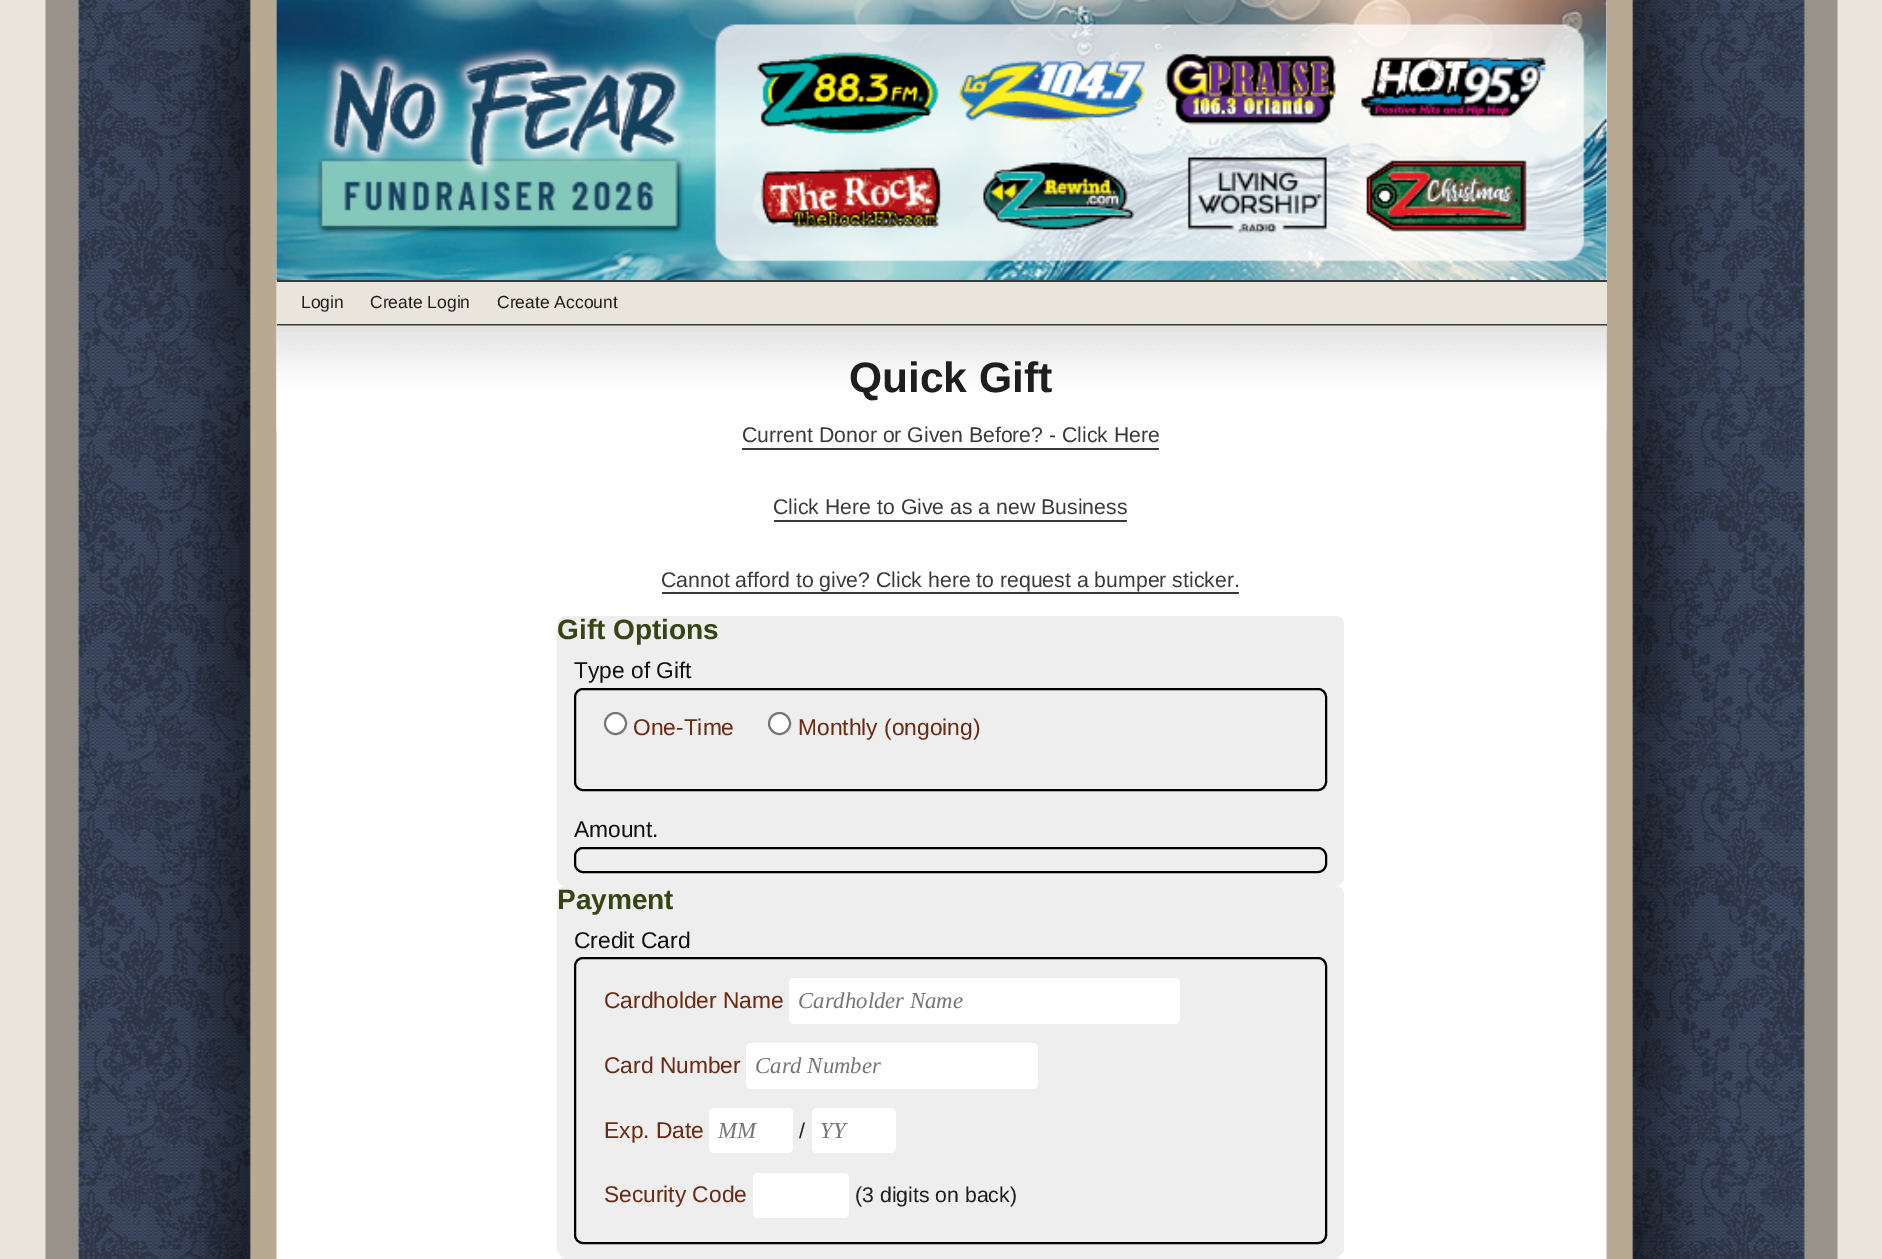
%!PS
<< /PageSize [1882 1259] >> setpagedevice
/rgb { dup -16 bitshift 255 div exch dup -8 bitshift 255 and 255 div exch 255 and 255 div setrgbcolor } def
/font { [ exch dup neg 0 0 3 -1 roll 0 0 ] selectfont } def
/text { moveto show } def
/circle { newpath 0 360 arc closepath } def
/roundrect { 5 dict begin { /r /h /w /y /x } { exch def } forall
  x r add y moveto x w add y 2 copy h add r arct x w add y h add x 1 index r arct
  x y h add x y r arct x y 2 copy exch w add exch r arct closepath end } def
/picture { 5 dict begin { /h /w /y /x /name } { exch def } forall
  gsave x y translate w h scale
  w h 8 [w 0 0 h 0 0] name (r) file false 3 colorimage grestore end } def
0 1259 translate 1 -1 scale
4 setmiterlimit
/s1 { /LiberationSans-Regular 17.5 font 16#1E1E1E rgb } def
/s2 { /LiberationSans-Bold 42.5 font 16#1E1E1E rgb } def
/s3 { /LiberationSans-Regular 21.25 font 16#3A3A3A rgb } def
/s4 { /LiberationSans-Bold 28 font 16#384313 rgb } def
/s5 { /LiberationSans-Regular 22.75 font 16#111111 rgb } def
/s6 { /LiberationSans-Regular 22.75 font 16#692B12 rgb } def
/s7 { /LiberationSerif-Italic 22.75 font 16#757575 rgb } def
/s8 { /LiberationSans-Regular 21.25 font 16#1E1E1E rgb } def
16#E9E5DC rgb
0 0 1882 1259 rectfill
(pic1.raw) 45 0 1793 1259 picture
16#FFFFFF rgb
1606 0 1 280 rectfill
(pic2.raw) 276 0 1331 280 picture
16#E9E5DC rgb
277 282 1330 42 rectfill
16#3A3A3A rgb
277 280 1330 2 rectfill
277 324 1330 2 rectfill
s1
(Login) 301 308 text
(Create Login) 370 308 text
(Create Account) 497 308 text
(pic3.raw) 276 325 1331 106 picture
s2
(Quick Gift) 849 392 text
s3
(Current Donor or Given Before? - Click Here) 742 442 text
742 448 417 2 rectfill
(Click Here to Give as a new Business) 773 514 text
774 520 353 2 rectfill
(Cannot afford to give? Click here to request a bumper sticker.) 661 587 text
662 592 577 2 rectfill
16#EEEEEE rgb
557 616 787 270 9 roundrect fill
s4
(Gift Options) 557 639 text
s5
(Type of Gift) 574 678 text
16#000000 rgb
2 setlinewidth
575 689 751 101 8 roundrect stroke
16#FFFFFF rgb
615.5 723.5 10.5 circle gsave fill grestore
16#767676 rgb
stroke
s6
(One-Time) 633 735 text
16#FFFFFF rgb
779.5 723.5 10.5 circle gsave fill grestore
16#767676 rgb
stroke
s6
(Monthly \(ongoing\)) 798 735 text
s5
(Amount.) 574 837 text
16#000000 rgb
575 848 751 24 8 roundrect stroke
16#EEEEEE rgb
557 886 787 371 9 roundrect fill
s4
(Payment) 557 909 text
s5
(Credit Card) 574 948 text
16#000000 rgb
575 958 751 285 8 roundrect stroke
s6
(Cardholder Name) 604 1008 text
16#FFFFFF rgb
789 978 391 46 5 roundrect fill
s7
(Cardholder Name) 798 1008 text
s6
(Card Number) 604 1073 text
16#FFFFFF rgb
746 1043 292 46 5 roundrect fill
s7
(Card Number) 755 1073 text
s6
(Exp. Date) 604 1138 text
16#FFFFFF rgb
709 1108 84 45 5 roundrect fill
s7
(MM) 718 1138 text
s8
(/) 799 1138 text
16#FFFFFF rgb
812 1108 84 45 5 roundrect fill
s7
(YY) 820 1138 text
s6
(Security Code) 604 1202 text
16#FFFFFF rgb
753 1173 96 45 5 roundrect fill
s8
(\(3 digits on back\)) 855 1202 text
16#EEEEEE rgb
557 1257 787 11 9 roundrect fill
showpage
